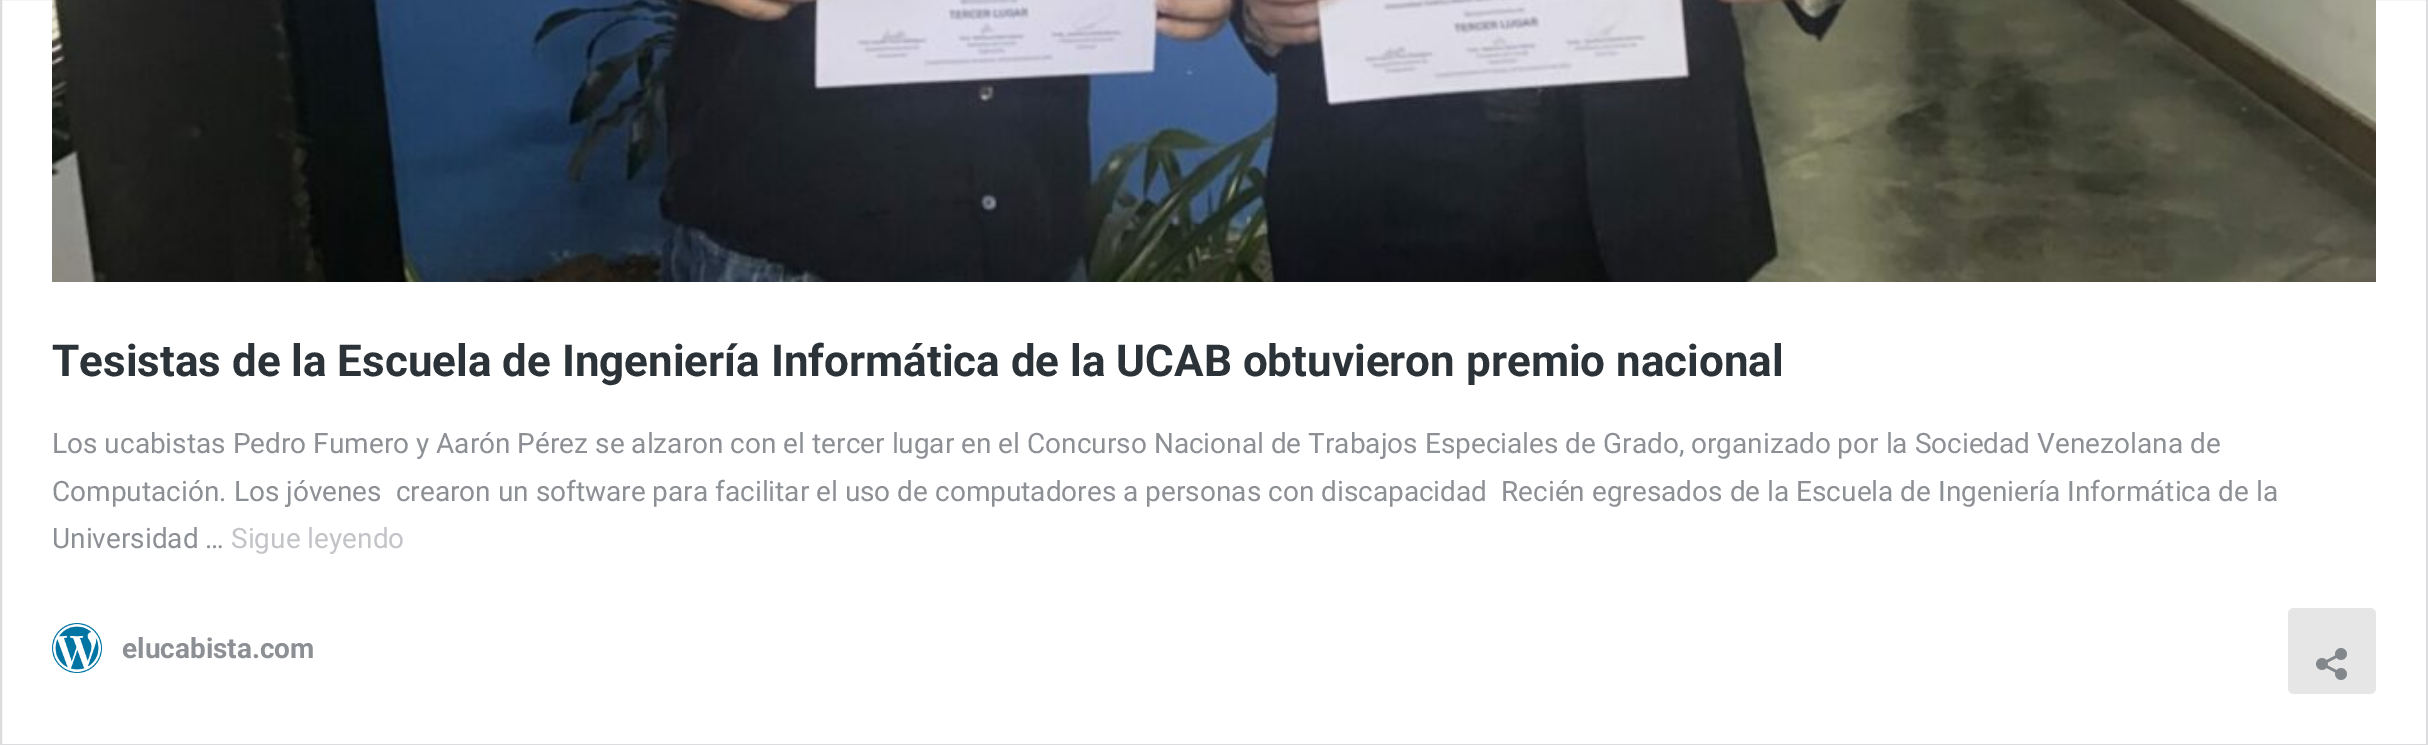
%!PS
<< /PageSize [2428 745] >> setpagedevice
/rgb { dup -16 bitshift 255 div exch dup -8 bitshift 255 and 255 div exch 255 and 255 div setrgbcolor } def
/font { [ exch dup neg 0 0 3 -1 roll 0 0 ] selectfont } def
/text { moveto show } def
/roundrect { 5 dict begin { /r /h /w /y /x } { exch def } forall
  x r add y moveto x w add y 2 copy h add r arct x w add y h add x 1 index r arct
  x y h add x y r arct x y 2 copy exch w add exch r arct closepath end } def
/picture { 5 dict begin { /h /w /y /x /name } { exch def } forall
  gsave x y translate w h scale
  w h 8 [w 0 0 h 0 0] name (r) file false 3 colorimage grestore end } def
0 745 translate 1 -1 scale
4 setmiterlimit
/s1 { /Roboto-Bold 44 font 16#2C3338 rgb } def
/s2 { /Roboto-Regular 28 font 16#8C8F94 rgb } def
/s3 { /Roboto-Regular 28 font 16#C3C4C7 rgb } def
/s4 { /Roboto-Bold 28 font 16#8C8F94 rgb } def
16#FFFFFF rgb
0 0 2428 745 rectfill
16#DCDCDE rgb
2 setlinewidth
1 -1 2426 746 rectstroke
(pic1.raw) 52 0 2324 282 picture
s1
(Tesistas de la Escuela de Ingeniería Informática de la UCAB obtuvieron premio nacional) 52 376 text
s2
(Los ucabistas Pedro Fumero y Aarón Pérez se alzaron con el tercer lugar en el Concurso Nacional de Trabajos Especiales de Grado, organizado por la Sociedad Venezolana de) 52 453 text
(Computación. Los jóvenes  crearon un software para facilitar el uso de computadores a personas con discapacidad  Recién egresados de la Escuela de Ingeniería Informática de la) 52 501 text
(Universidad …) 52 548 text
s3
(Sigue leyendo) 231 548 text
(pic2.raw) 52 623 50 50 picture
s4
(elucabista.com) 122 658 text
16#E6E6E6 rgb
2288 608 88 86 6 roundrect fill
(pic3.raw) 2316 648 31 32 picture
showpage
